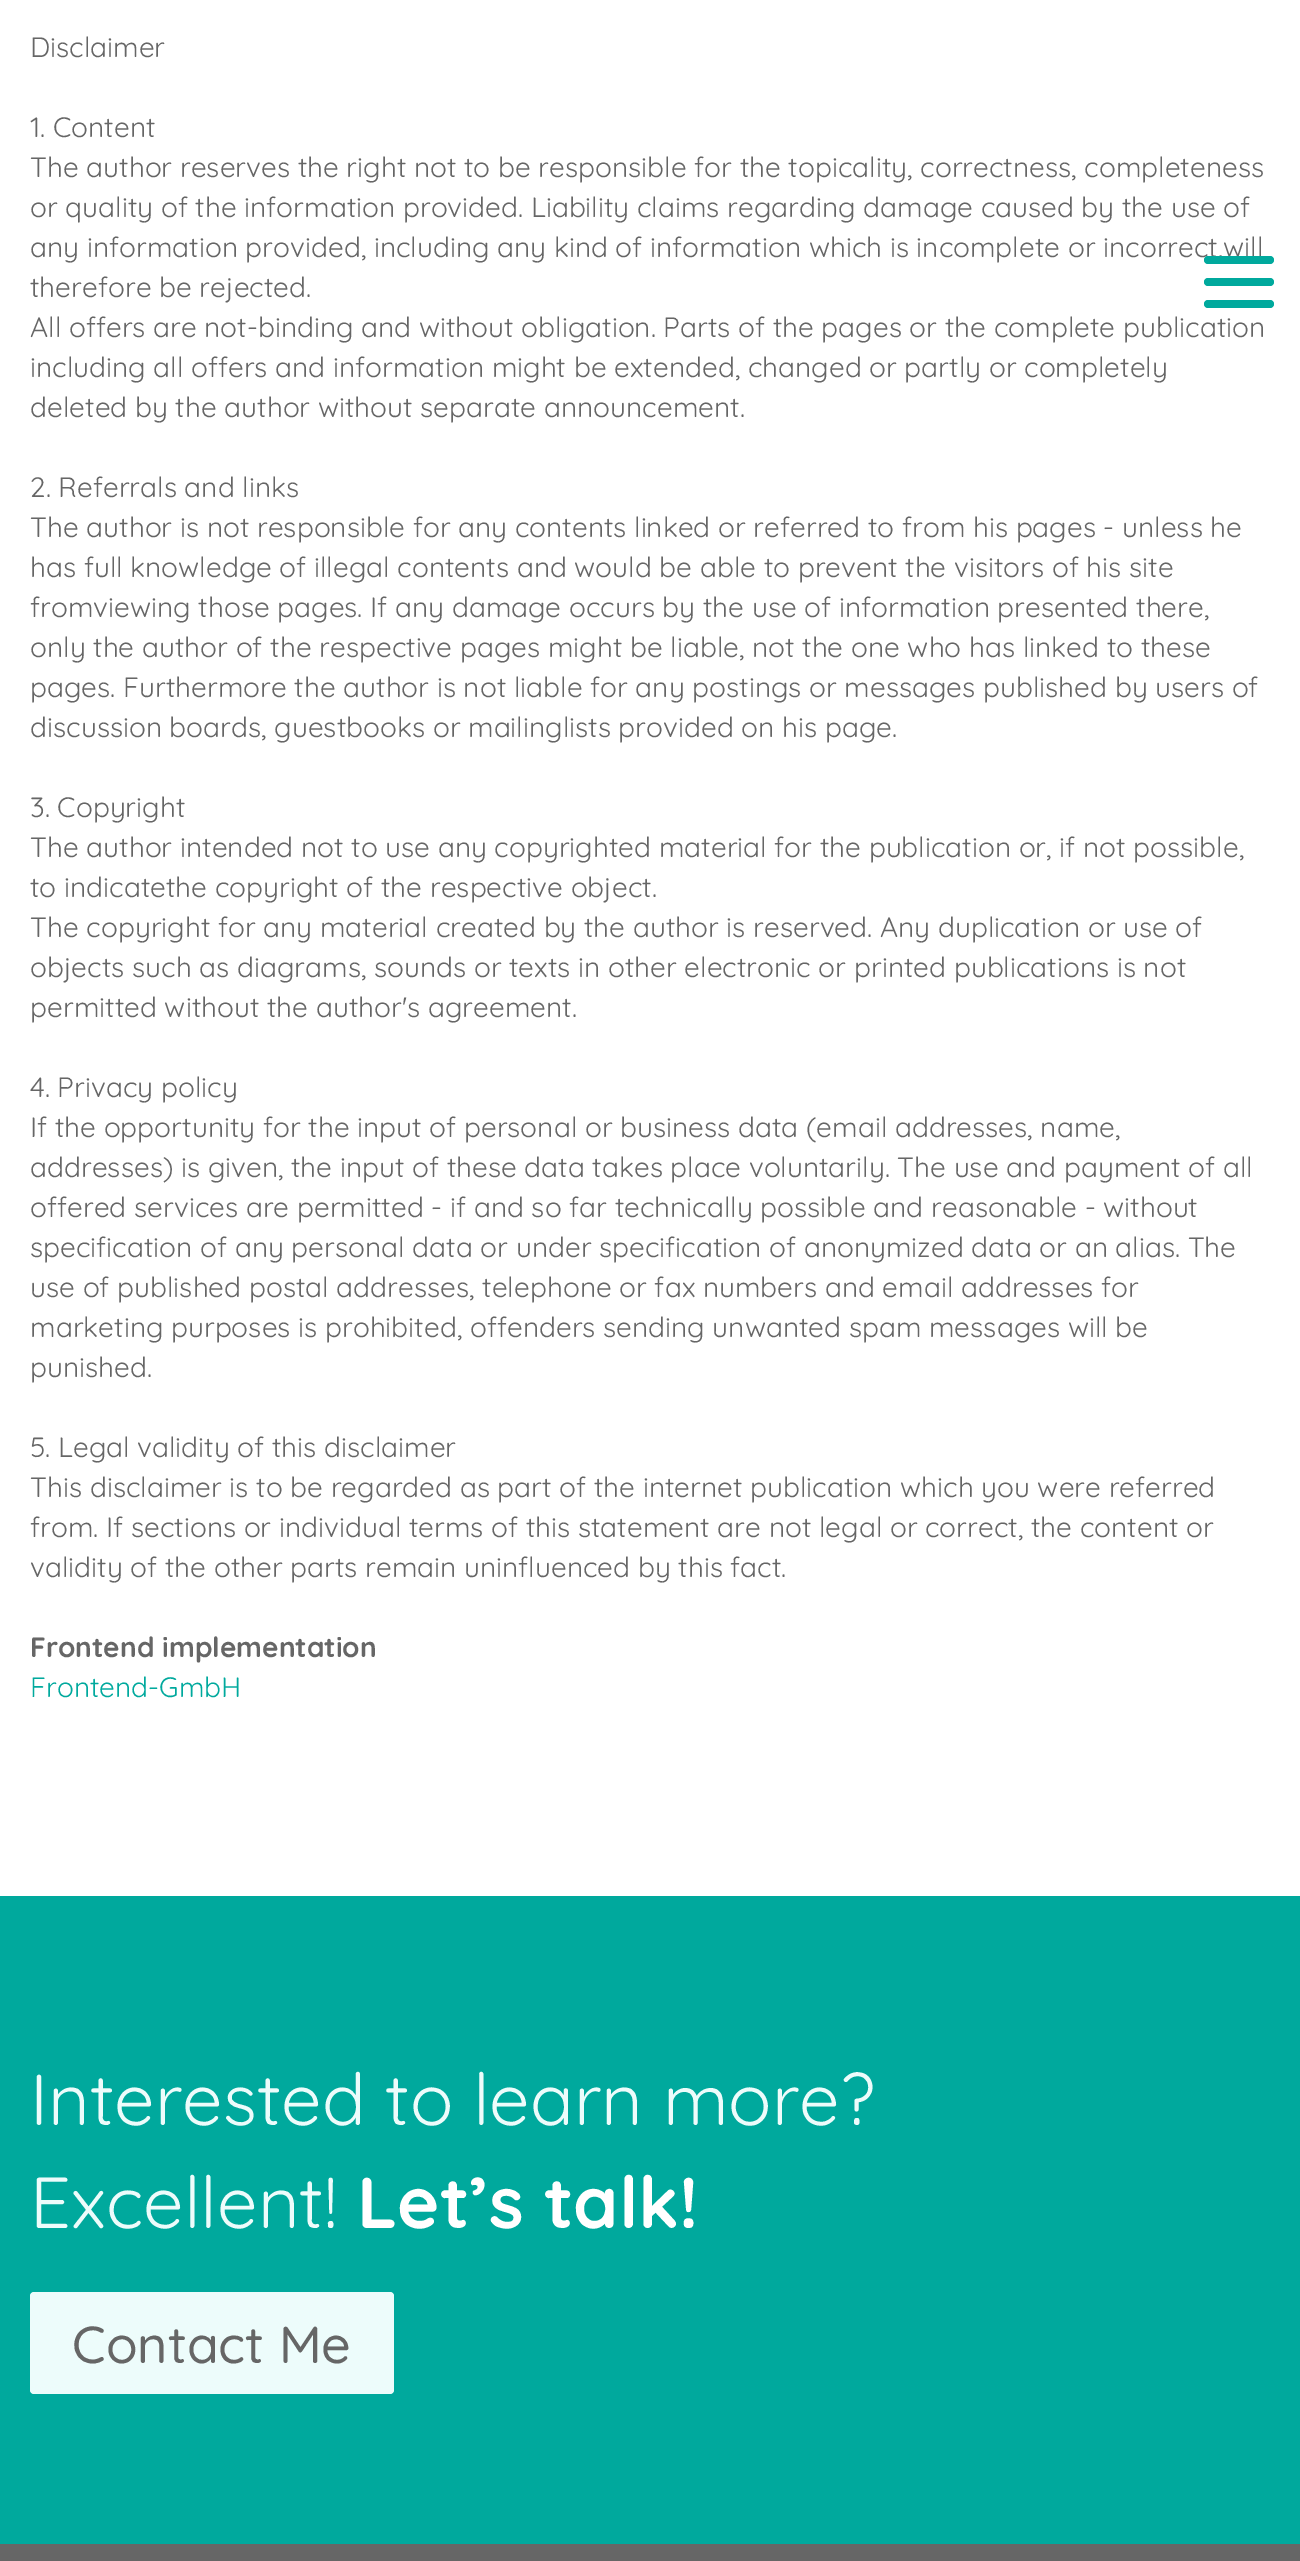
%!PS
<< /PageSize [1300 2561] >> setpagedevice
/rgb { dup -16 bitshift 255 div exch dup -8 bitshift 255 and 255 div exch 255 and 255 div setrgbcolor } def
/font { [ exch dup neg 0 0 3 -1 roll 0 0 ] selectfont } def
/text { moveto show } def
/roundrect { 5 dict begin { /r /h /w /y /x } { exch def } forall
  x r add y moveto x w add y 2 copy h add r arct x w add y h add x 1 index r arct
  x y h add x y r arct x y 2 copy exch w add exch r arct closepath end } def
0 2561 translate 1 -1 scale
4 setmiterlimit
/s1 { /Quicksand-Regular 28 font 16#666666 rgb } def
/s2 { /Quicksand-Bold 28 font 16#666666 rgb } def
/s3 { /Quicksand-Regular 28 font 16#00A99D rgb } def
/s4 { /Quicksand-Regular 72 font 16#EDFCFB rgb } def
/s5 { /Quicksand-Bold 72 font 16#FFFFFF rgb } def
/s6 { /Quicksand-Medium 52 font 16#666666 rgb } def
16#FFFFFF rgb
0 0 1300 2561 rectfill
s1
(Disclaimer) 30 57 text
(1. Content) 30 137 text
(The author reserves the right not to be responsible for the topicality, correctness, completeness) 30 177 text
(or quality of the information provided. Liability claims regarding damage caused by the use of) 30 217 text
(any information provided, including any kind of information which is incomplete or incorrect,will) 30 257 text
(therefore be rejected.) 30 297 text
(All offers are not-binding and without obligation. Parts of the pages or the complete publication) 30 337 text
(including all offers and information might be extended, changed or partly or completely) 30 377 text
(deleted by the author without separate announcement.) 30 417 text
(2. Referrals and links) 30 497 text
(The author is not responsible for any contents linked or referred to from his pages - unless he) 30 537 text
(has full knowledge of illegal contents and would be able to prevent the visitors of his site) 30 577 text
(fromviewing those pages. If any damage occurs by the use of information presented there,) 30 617 text
(only the author of the respective pages might be liable, not the one who has linked to these) 30 657 text
(pages. Furthermore the author is not liable for any postings or messages published by users of) 30 697 text
(discussion boards, guestbooks or mailinglists provided on his page.) 30 737 text
(3. Copyright) 30 817 text
(The author intended not to use any copyrighted material for the publication or, if not possible,) 30 857 text
(to indicatethe copyright of the respective object.) 30 897 text
(The copyright for any material created by the author is reserved. Any duplication or use of) 30 937 text
(objects such as diagrams, sounds or texts in other electronic or printed publications is not) 30 977 text
(permitted without the author's agreement.) 30 1017 text
(4. Privacy policy) 30 1097 text
(If the opportunity for the input of personal or business data \(email addresses, name,) 30 1137 text
(addresses\) is given, the input of these data takes place voluntarily. The use and payment of all) 30 1177 text
(offered services are permitted - if and so far technically possible and reasonable - without) 30 1217 text
(specification of any personal data or under specification of anonymized data or an alias. The) 30 1257 text
(use of published postal addresses, telephone or fax numbers and email addresses for) 30 1297 text
(marketing purposes is prohibited, offenders sending unwanted spam messages will be) 30 1337 text
(punished.) 30 1377 text
(5. Legal validity of this disclaimer) 30 1457 text
(This disclaimer is to be regarded as part of the internet publication which you were referred) 30 1497 text
(from. If sections or individual terms of this statement are not legal or correct, the content or) 30 1537 text
(validity of the other parts remain uninfluenced by this fact.) 30 1577 text
s2
(Frontend implementation) 30 1657 text
s3
(Frontend-GmbH) 30 1697 text
1204 256 70 8 4 roundrect fill
1204 278 70 8 4 roundrect fill
1204 300 70 8 4 roundrect fill
0 1896 1300 648 rectfill
s4
(Interested to learn more?) 30 2125 text
(Excellent!) 30 2228 text
s5
(Let’s talk!) 357 2228 text
16#EDFCFB rgb
30 2292 364 102 4 roundrect fill
s6
(Contact Me) 72 2363 text
0 2544 1300 17 rectfill
showpage
